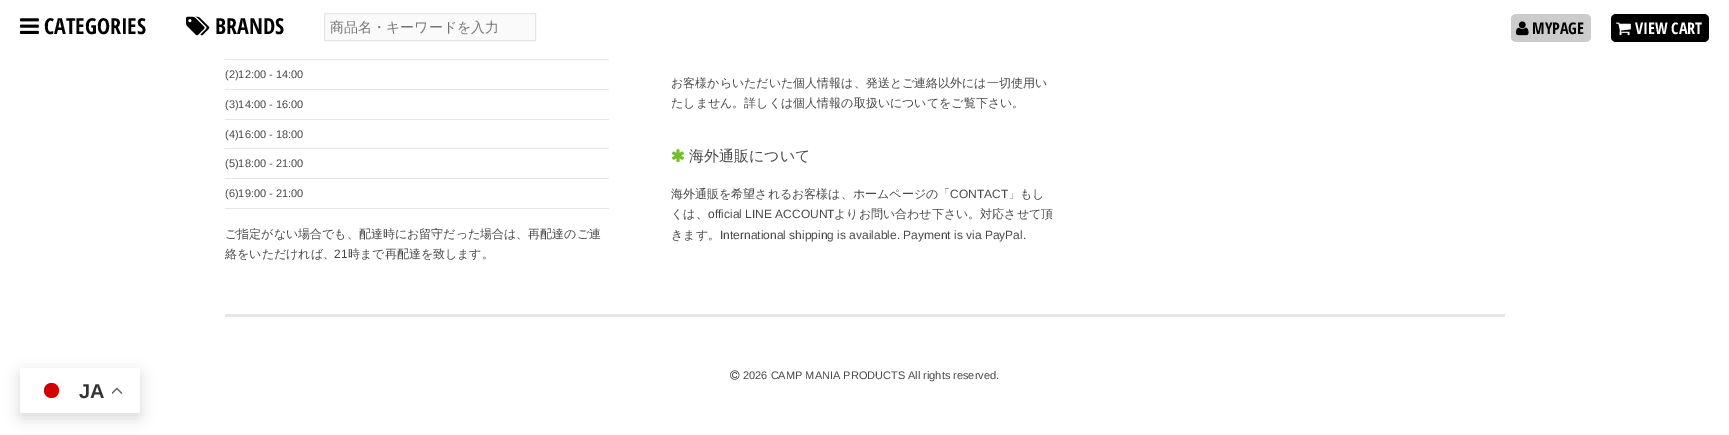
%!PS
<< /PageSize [1729 435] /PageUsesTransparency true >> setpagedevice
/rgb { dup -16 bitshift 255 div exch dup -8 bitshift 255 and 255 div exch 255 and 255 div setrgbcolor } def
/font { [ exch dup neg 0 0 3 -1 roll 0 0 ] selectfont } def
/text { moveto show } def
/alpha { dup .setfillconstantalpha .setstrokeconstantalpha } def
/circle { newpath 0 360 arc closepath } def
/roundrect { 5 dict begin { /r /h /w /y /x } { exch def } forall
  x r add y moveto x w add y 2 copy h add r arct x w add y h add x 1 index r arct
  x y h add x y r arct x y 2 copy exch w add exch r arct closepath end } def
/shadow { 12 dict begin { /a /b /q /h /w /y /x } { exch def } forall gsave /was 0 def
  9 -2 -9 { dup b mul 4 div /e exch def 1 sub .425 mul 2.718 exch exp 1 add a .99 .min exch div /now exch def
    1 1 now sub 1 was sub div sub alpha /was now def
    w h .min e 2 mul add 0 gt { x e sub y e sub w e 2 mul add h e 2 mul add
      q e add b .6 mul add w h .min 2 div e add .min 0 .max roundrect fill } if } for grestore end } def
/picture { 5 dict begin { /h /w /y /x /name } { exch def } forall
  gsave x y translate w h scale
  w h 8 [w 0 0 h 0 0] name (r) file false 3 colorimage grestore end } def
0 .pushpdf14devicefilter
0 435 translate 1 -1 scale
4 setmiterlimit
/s1 { /OpenSansCondensed-Bold 22 font 16#000000 rgb } def
/s2 { /WenQuanYiZenHei-Medium 14 font 16#757575 rgb } def
/s3 { /OpenSansCondensed-Bold 16 font 16#000000 rgb } def
/s4 { /OpenSansCondensed-Bold 16 font 16#FFFFFF rgb } def
/s5 { /LiberationSans-Regular 11 font 16#474747 rgb } def
/s6 { /WenQuanYiZenHei-Medium 12 font 16#474747 rgb } def
/s7 { /LiberationSans-Regular 12 font 16#474747 rgb } def
/s8 { /WenQuanYiZenHei-Medium 15 font 16#474747 rgb } def
/s9 { /LiberationSans-Bold 20 font 16#333333 rgb } def
16#FFFFFF rgb
0 0 1729 435 rectfill
(pic1.raw) 20 18 19 16 picture
s1
(CATEGORIES) 44 34 text
(pic2.raw) 186 16 24 20 picture
(BRANDS) 215 34 text
16#FAFAFA rgb
324.5 13.5 moveto 535.5 13.5 lineto 535.5 40.5 lineto 324.5 40.5 lineto closepath gsave fill grestore
16#E6E6E6 rgb
stroke
s2
(商品名・キーワードを入力) 330 32 text
16#CCCCCC rgb
1511 14 80 28 5 roundrect fill
(pic3.raw) 1516 21 13 15 picture
s3
(MYPAGE) 1532 34 text
1611 14 98 28 5 roundrect fill
(pic4.raw) 1616 22 15 14 picture
s4
(VIEW CART) 1635 34 text
16#E6E6E6 rgb
225 59 384 1 rectfill
225 89 384 1 rectfill
s5
(\(2\)12:00 - 14:00) 225 78 text
16#E6E6E6 rgb
225 119 384 1 rectfill
s5
(\(3\)14:00 - 16:00) 225 108 text
16#E6E6E6 rgb
225 148 384 1 rectfill
s5
(\(4\)16:00 - 18:00) 225 138 text
16#E6E6E6 rgb
225 178 384 1 rectfill
s5
(\(5\)18:00 - 21:00) 225 167 text
16#E6E6E6 rgb
225 208 384 1 rectfill
s5
(\(6\)19:00 - 21:00) 225 197 text
s6
(ご指定がない場合でも、配達時にお留守だった場合は、再配達のご連) 225 238 text
gsave
225 0 1280 264 rectclip
(絡をいただければ、) 225 258 text
grestore
s7
(21) 334 258 text
s6
(時まで再配達を致します。) 348 258 text
(お客様からいただいた個人情報は、発送とご連絡以外には一切使用い) 671 87 text
(たしません。詳しくは個人情報の取扱いについてをご覧下さい。) 671 107 text
(pic5.raw) 672 149 12 14 picture
s8
(海外通販について) 689 161 text
s6
(海外通販を希望されるお客様は、ホームページの「) 671 198 text
s7
(CONTACT) 950 198 text
s6
(」もし) 1008 198 text
(くは、) 671 218 text
s7
(official LINE ACCOUNT) 708 218 text
s6
(よりお問い合わせ下さい。対応させて頂) 834 218 text
(きます。) 671 239 text
s7
(International shipping is available. Payment is via PayPal.) 720 239 text
16#E6E6E6 rgb
225 314 1280 3 rectfill
(pic6.raw) 730 370 10 10 picture
s5
(2026 CAMP MANIA PRODUCTS All rights reserved.) 743 379 text
16#000000 rgb
20 373 120 45 2 7.5 0.15 shadow
16#FFFFFF rgb
20 368 120 45 2 roundrect fill
16#D30000 rgb
51.5 390.5 7.5 circle fill
s9
(JA) 79 398 text
(pic7.raw) 112 387 11 7 picture
.poppdf14devicefilter showpage
